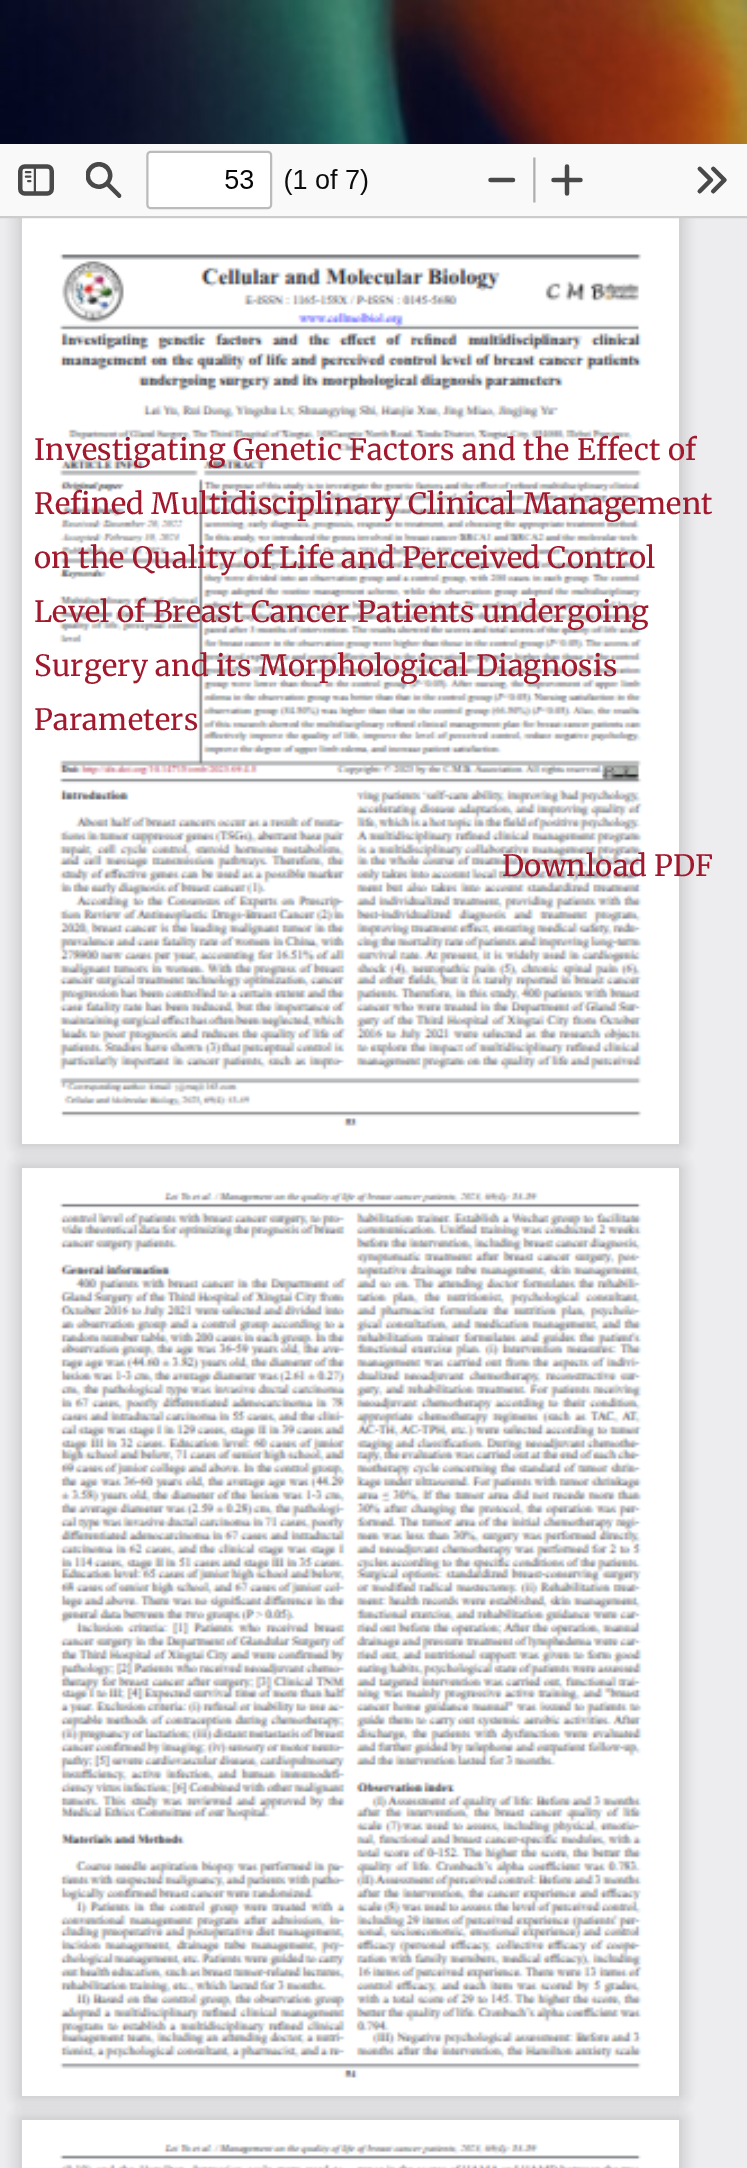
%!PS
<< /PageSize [747 2168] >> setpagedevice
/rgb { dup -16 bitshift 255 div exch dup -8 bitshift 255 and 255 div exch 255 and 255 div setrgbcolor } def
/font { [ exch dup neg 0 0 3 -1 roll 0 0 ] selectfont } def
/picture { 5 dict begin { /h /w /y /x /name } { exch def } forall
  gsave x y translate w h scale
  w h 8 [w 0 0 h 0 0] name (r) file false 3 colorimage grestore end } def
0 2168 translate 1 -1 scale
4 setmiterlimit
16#FFFFFF rgb
0 0 747 2168 rectfill
(pic1.raw) 0 0 747 144 picture
(pic2.raw) 0 144 747 2024 picture
/Merriweather-Light 29.25 font
16#A2192D rgb
34 460 moveto 0.25 0 (Investigating Genetic Factors and the Effect of) ashow
34 514 moveto 0.25 0 (Refined Multidisciplinary Clinical Management) ashow
34 568 moveto 0.25 0 (on the Quality of Life and Perceived Control) ashow
34 622 moveto 0.25 0 (Level of Breast Cancer Patients undergoing) ashow
34 676 moveto 0.25 0 (Surgery and its Morphological Diagnosis) ashow
34 730 moveto 0.25 0 (Parameters) ashow
502 876 moveto 0.25 0 (Download PDF) ashow
showpage
